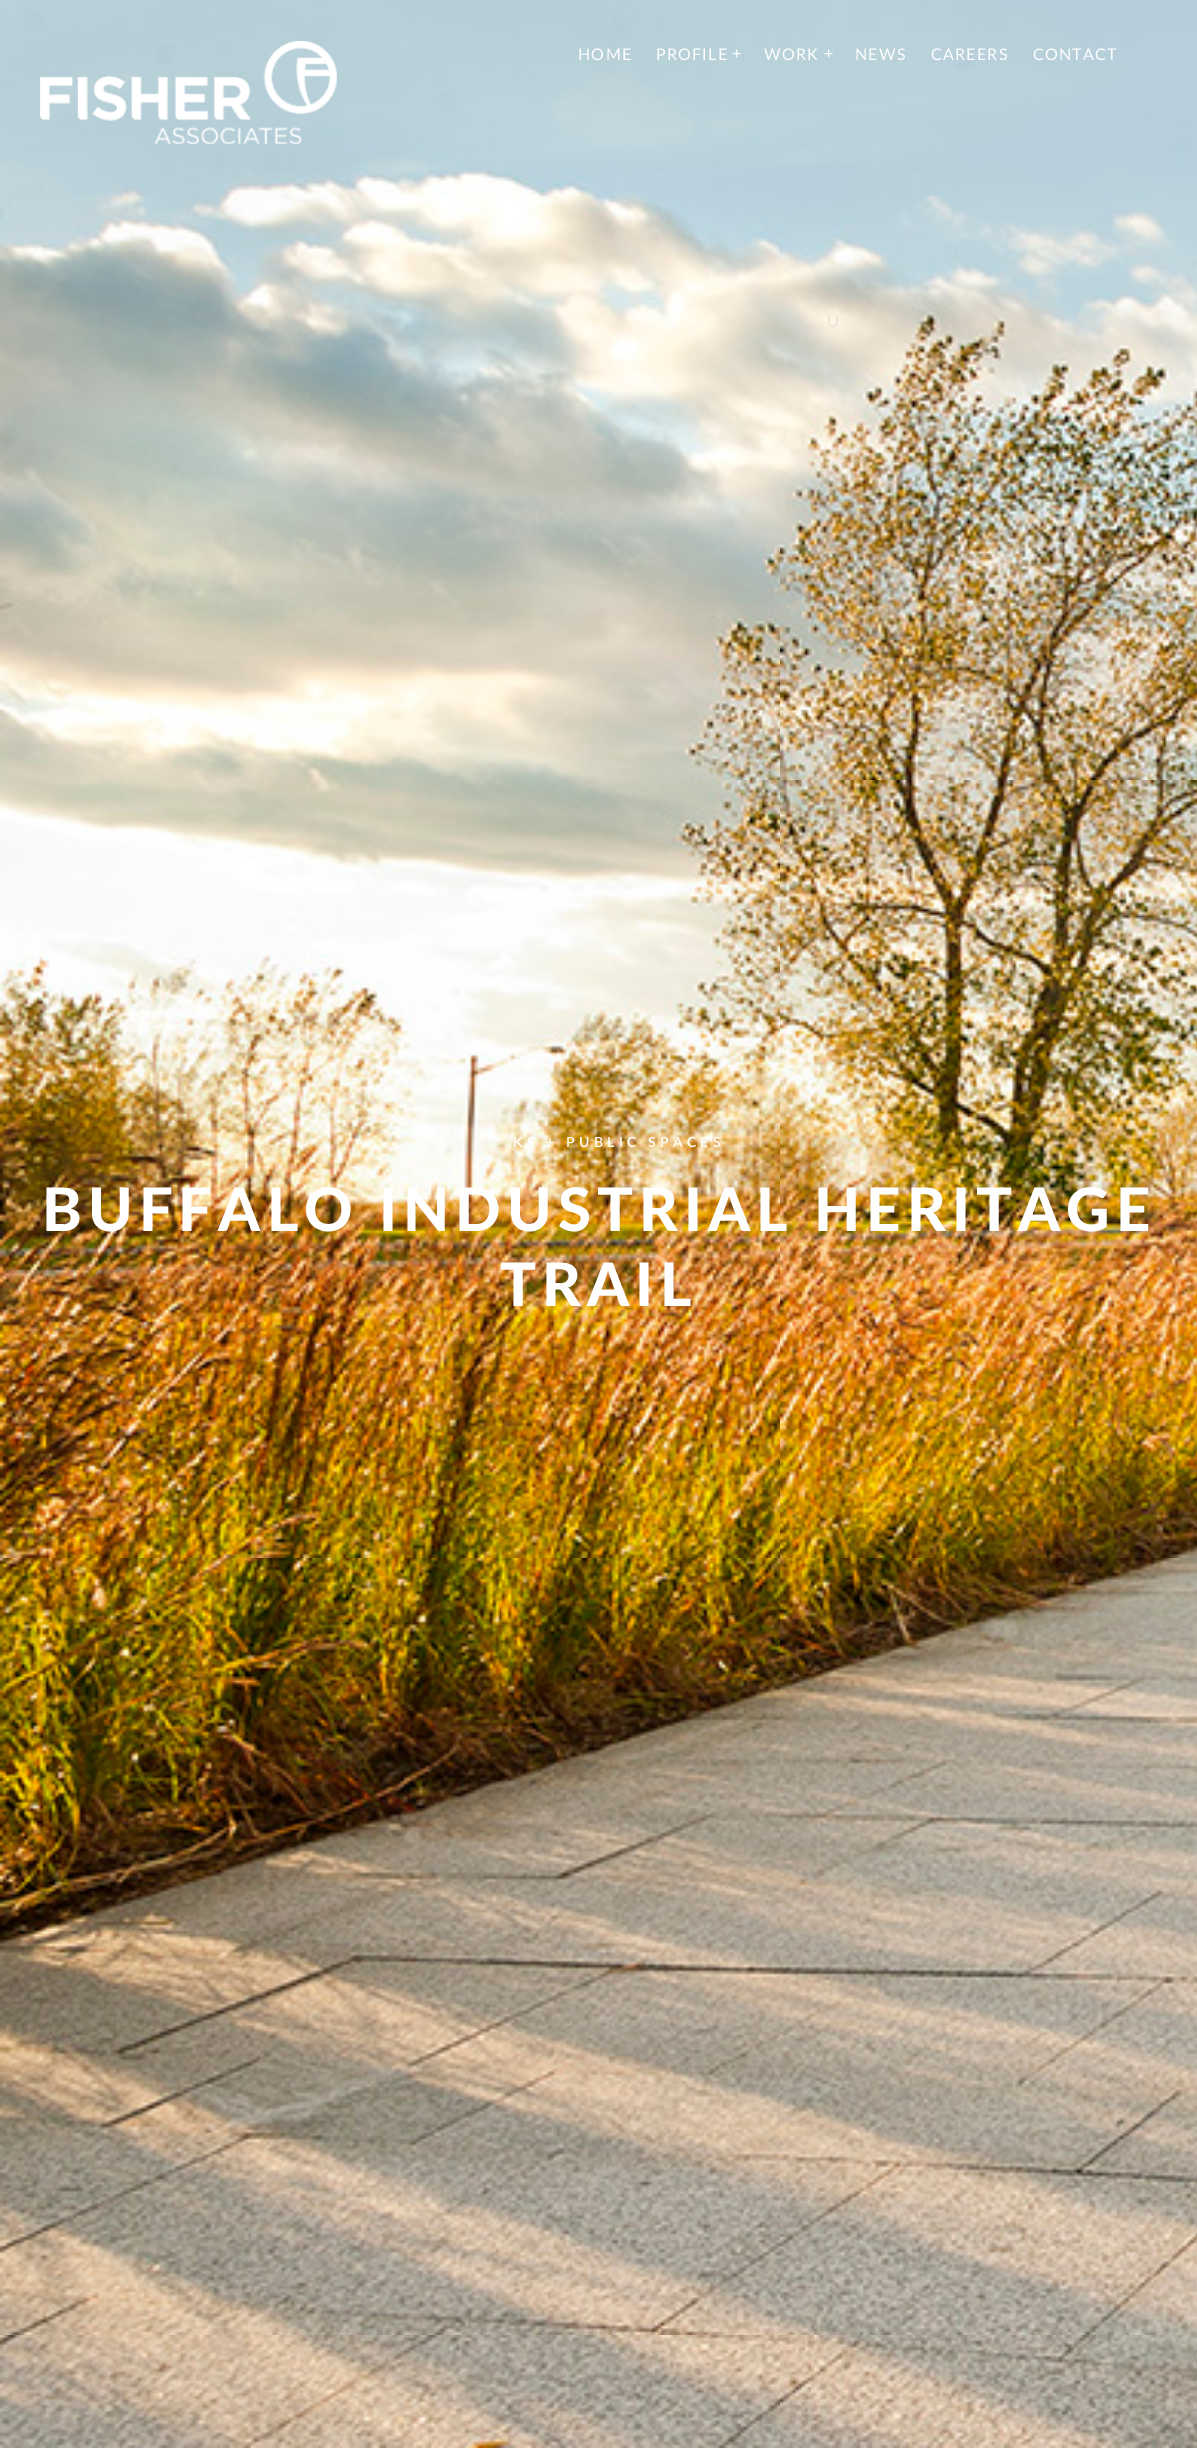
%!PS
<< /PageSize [1197 2448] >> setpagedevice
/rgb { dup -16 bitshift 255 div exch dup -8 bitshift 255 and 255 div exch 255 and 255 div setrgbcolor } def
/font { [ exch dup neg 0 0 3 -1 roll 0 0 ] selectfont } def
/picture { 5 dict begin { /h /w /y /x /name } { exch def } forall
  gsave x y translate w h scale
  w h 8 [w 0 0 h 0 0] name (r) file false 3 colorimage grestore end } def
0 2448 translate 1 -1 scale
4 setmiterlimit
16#FFFFFF rgb
0 0 1197 2448 rectfill
(pic1.raw) 0 0 1197 2448 picture
(pic2.raw) 40 41 297 103 picture
/Lato-Regular 16 font
578 60 moveto 1.25 0 (HOME) ashow
656 60 moveto 1.25 0 (PROFILE) ashow
732 59 moveto 1.25 0 (+) ashow
764 60 moveto 1.25 0 (WORK) ashow
824 59 moveto 1.25 0 (+) ashow
16#E6E1D3 rgb
827 327 moveto 1.25 0 (U) ashow
16#FFFFFF rgb
855 60 moveto 1.25 0 (NEWS) ashow
931 60 moveto 1.25 0 (CAREERS) ashow
1033 60 moveto 1.25 0 (CONTACT) ashow
/Lato-SemiBold 14 font
513 1147 moveto 4.25 0 (KS + PUBLIC SPACES) ashow
/Lato-Black 60 font
42 1231 moveto 6 0 (BUFFALO INDUSTRIAL HERITAGE) ashow
500 1306 moveto 6 0 (TRAIL) ashow
showpage
